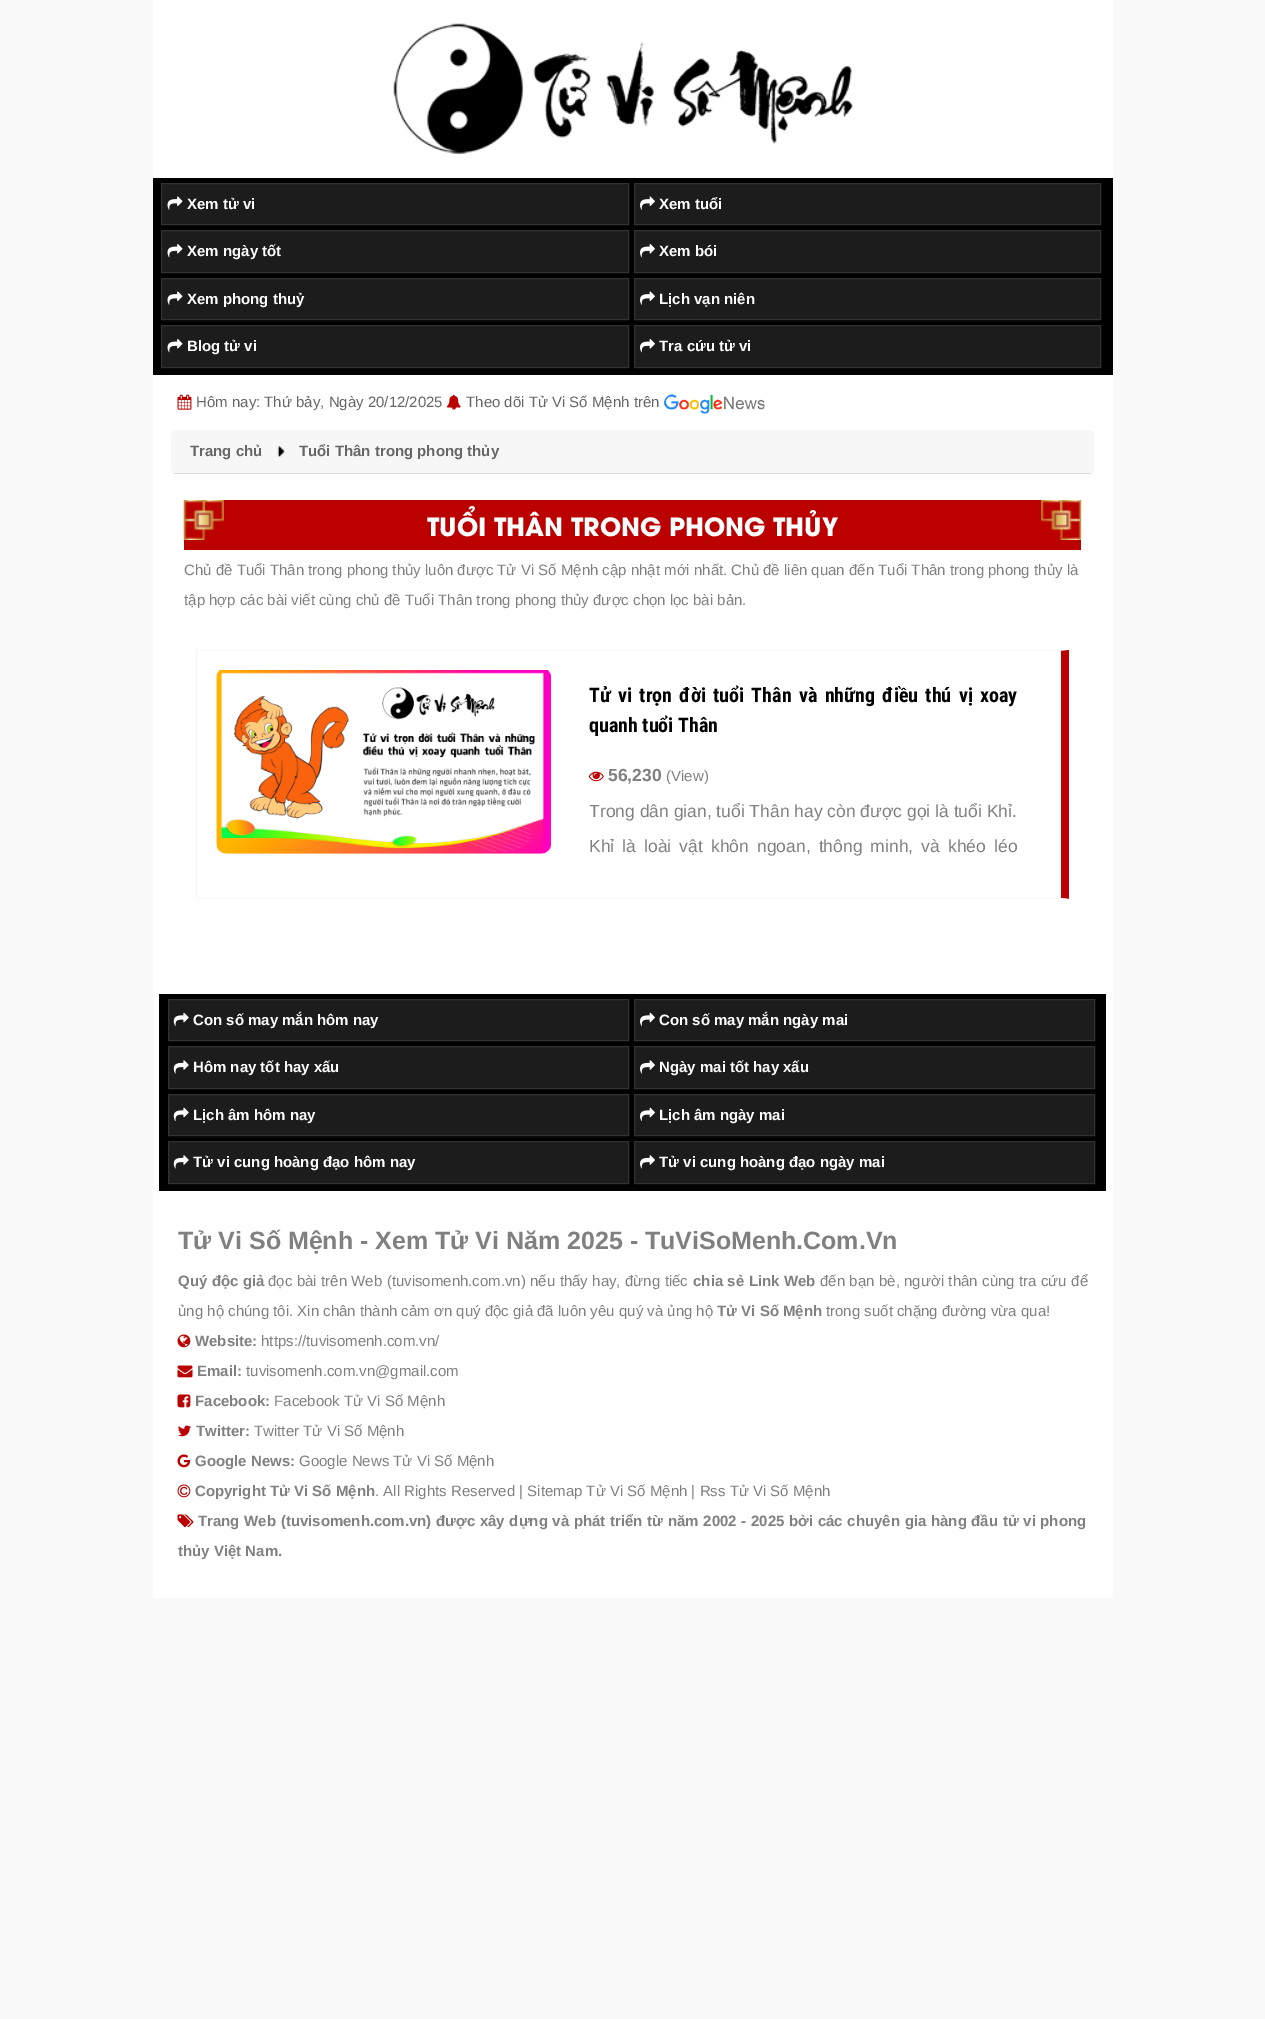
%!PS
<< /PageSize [1265 2019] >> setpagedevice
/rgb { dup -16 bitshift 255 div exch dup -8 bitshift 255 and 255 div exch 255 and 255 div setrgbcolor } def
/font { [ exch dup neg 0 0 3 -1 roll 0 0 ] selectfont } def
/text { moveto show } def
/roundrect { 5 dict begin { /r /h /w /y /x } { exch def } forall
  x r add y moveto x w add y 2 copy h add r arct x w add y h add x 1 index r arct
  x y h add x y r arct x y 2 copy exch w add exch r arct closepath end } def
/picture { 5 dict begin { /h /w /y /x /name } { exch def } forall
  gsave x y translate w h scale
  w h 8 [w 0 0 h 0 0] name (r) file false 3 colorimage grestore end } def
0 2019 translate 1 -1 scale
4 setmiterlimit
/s1 { /LiberationSans-Bold 15 font 16#FFFFFF rgb } def
/s2 { /LiberationSans-Regular 15 font 16#666666 rgb } def
/s3 { /LiberationSans-Bold 15 font 16#666666 rgb } def
/s4 { /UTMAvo-Bold 25 font 16#FFFFFF rgb } def
/s5 { /LiberationSans-Regular 15 font 16#808080 rgb } def
/s6 { /RobotoCondensed-Bold 20 font 16#000000 rgb } def
/s7 { /LiberationSans-Bold 17.5 font 16#808080 rgb } def
/s8 { /LiberationSans-Regular 17.5 font 16#808080 rgb } def
/s9 { /LiberationSans-Bold 25 font 16#808080 rgb } def
/s10 { /LiberationSans-Bold 15 font 16#808080 rgb } def
16#F9F9F9 rgb
0 0 1265 2019 rectfill
16#FFFFFF rgb
153 0 960 178 rectfill
(pic1.raw) 393 23 460 131 picture
16#000000 rgb
153 178 960 197 rectfill
16#1C1C1C rgb
161.5 183.5 moveto 628.5 183.5 lineto 628.5 224.5 lineto 161.5 224.5 lineto closepath gsave fill grestore
16#323232 rgb
stroke
(pic2.raw) 167 196 16 14 picture
s1
(Xem tử vi) 187 209 text
16#1C1C1C rgb
634.5 183.5 moveto 1100.5 183.5 lineto 1100.5 224.5 lineto 634.5 224.5 lineto closepath gsave fill grestore
16#323232 rgb
stroke
(pic3.raw) 640 196 15 14 picture
s1
(Xem tuổi) 659 209 text
16#1C1C1C rgb
161.5 230.5 moveto 628.5 230.5 lineto 628.5 272.5 lineto 161.5 272.5 lineto closepath gsave fill grestore
16#323232 rgb
stroke
(pic4.raw) 167 244 16 14 picture
s1
(Xem ngày tốt) 187 256 text
16#1C1C1C rgb
634.5 230.5 moveto 1100.5 230.5 lineto 1100.5 272.5 lineto 634.5 272.5 lineto closepath gsave fill grestore
16#323232 rgb
stroke
(pic5.raw) 640 244 15 14 picture
s1
(Xem bói) 659 256 text
16#1C1C1C rgb
161.5 278.5 moveto 628.5 278.5 lineto 628.5 319.5 lineto 161.5 319.5 lineto closepath gsave fill grestore
16#323232 rgb
stroke
(pic2.raw) 167 291 16 14 picture
s1
(Xem phong thuỷ) 187 304 text
16#1C1C1C rgb
634.5 278.5 moveto 1100.5 278.5 lineto 1100.5 319.5 lineto 634.5 319.5 lineto closepath gsave fill grestore
16#323232 rgb
stroke
(pic3.raw) 640 291 15 14 picture
s1
(Lịch vạn niên) 659 304 text
16#1C1C1C rgb
161.5 325.5 moveto 628.5 325.5 lineto 628.5 367.5 lineto 161.5 367.5 lineto closepath gsave fill grestore
16#323232 rgb
stroke
(pic4.raw) 167 339 16 14 picture
s1
(Blog tử vi) 187 351 text
16#1C1C1C rgb
634.5 325.5 moveto 1100.5 325.5 lineto 1100.5 367.5 lineto 634.5 367.5 lineto closepath gsave fill grestore
16#323232 rgb
stroke
(pic5.raw) 640 339 15 14 picture
s1
(Tra cứu tử vi) 659 351 text
153 375 960 1223 rectfill
(pic6.raw) 177 394 15 16 picture
s2
(Hôm nay: Thứ bảy, Ngày 20/12/2025) 196 407 text
(pic7.raw) 446 394 15 16 picture
(Theo dõi Tử Vi Số Mệnh trên) 466 407 text
(pic8.raw) 663 394 102 20 picture
16#F7F7F7 rgb
171 430 923 44 5 roundrect fill
16#DDDDDD rgb
174 473 917 1 rectfill
(pic9.raw) 277 446 8 11 picture
s3
(Trang chủ) 190 456 text
(Tuổi Thân trong phong thủy) 299 456 text
16#BB0000 rgb
184 500 897 50 rectfill
(pic10.raw) 183 500 899 40 picture
s4
(TUỔI THÂN TRONG PHONG THỦY) 427 536 text
s5
(Chủ đề Tuổi Thân trong phong thủy luôn được Tử Vi Số Mệnh cập nhật mới nhất. Chủ đề liên quan đến Tuổi Thân trong phong thủy là) 184 575 text
(tập hợp các bài viết cùng chủ đề Tuổi Thân trong phong thủy được chọn lọc bài bản.) 184 605 text
16#F7F7F7 rgb
196 650 moveto 1069 650 lineto 1061 651 lineto 198 651 lineto closepath fill
16#BB0000 rgb
1069 650 moveto 1069 899 lineto 1061 898 lineto 1061 651 lineto closepath fill
16#F7F7F7 rgb
1069 899 moveto 196 899 lineto 198 898 lineto 1061 898 lineto closepath fill
196 650 1 249 rectfill
(pic11.raw) 216 670 335 184 picture
/RobotoCondensed-Bold 20 font
16#000000 rgb
589 702 moveto 2.75 0 32 (Tử vi trọn đời tuổi Thân và những điều thú vị xoay) widthshow
(quanh tuổi Thân) 589 732 text
(pic12.raw) 588 771 16 11 picture
s7
(56,230) 608 781 text
s5
(\(View\)) 666 781 text
gsave
589 794 429 70 18 roundrect clip newpath
s8
(Trong dân gian, tuổi Thân hay còn được gọi là tuổi Khỉ.) 589 817 text
grestore
/LiberationSans-Regular 17.5 font
589 852 moveto 3.25 0 32 (Khỉ là loài vật khôn ngoan, thông minh, và khéo léo) widthshow
16#000000 rgb
159 994 947 197 rectfill
16#1C1C1C rgb
168.5 999.5 moveto 628.5 999.5 lineto 628.5 1040.5 lineto 168.5 1040.5 lineto closepath gsave fill grestore
16#323232 rgb
stroke
(pic13.raw) 173 1012 16 14 picture
s1
(Con số may mắn hôm nay) 193 1025 text
16#1C1C1C rgb
634.5 999.5 moveto 1094.5 999.5 lineto 1094.5 1040.5 lineto 634.5 1040.5 lineto closepath gsave fill grestore
16#323232 rgb
stroke
(pic14.raw) 640 1012 15 14 picture
s1
(Con số may mắn ngày mai) 659 1025 text
16#1C1C1C rgb
168.5 1046.5 moveto 628.5 1046.5 lineto 628.5 1088.5 lineto 168.5 1088.5 lineto closepath gsave fill grestore
16#323232 rgb
stroke
(pic15.raw) 173 1060 16 14 picture
s1
(Hôm nay tốt hay xấu) 193 1072 text
16#1C1C1C rgb
634.5 1046.5 moveto 1094.5 1046.5 lineto 1094.5 1088.5 lineto 634.5 1088.5 lineto closepath gsave fill grestore
16#323232 rgb
stroke
(pic16.raw) 640 1060 15 14 picture
s1
(Ngày mai tốt hay xấu) 659 1072 text
16#1C1C1C rgb
168.5 1094.5 moveto 628.5 1094.5 lineto 628.5 1135.5 lineto 168.5 1135.5 lineto closepath gsave fill grestore
16#323232 rgb
stroke
(pic13.raw) 173 1107 16 14 picture
s1
(Lịch âm hôm nay) 193 1120 text
16#1C1C1C rgb
634.5 1094.5 moveto 1094.5 1094.5 lineto 1094.5 1135.5 lineto 634.5 1135.5 lineto closepath gsave fill grestore
16#323232 rgb
stroke
(pic14.raw) 640 1107 15 14 picture
s1
(Lịch âm ngày mai) 659 1120 text
16#1C1C1C rgb
168.5 1141.5 moveto 628.5 1141.5 lineto 628.5 1183.5 lineto 168.5 1183.5 lineto closepath gsave fill grestore
16#323232 rgb
stroke
(pic15.raw) 173 1155 16 14 picture
s1
(Tử vi cung hoàng đạo hôm nay) 193 1167 text
16#1C1C1C rgb
634.5 1141.5 moveto 1094.5 1141.5 lineto 1094.5 1183.5 lineto 634.5 1183.5 lineto closepath gsave fill grestore
16#323232 rgb
stroke
(pic16.raw) 640 1155 15 14 picture
s1
(Tử vi cung hoàng đạo ngày mai) 659 1167 text
s9
(Tử Vi Số Mệnh - Xem Tử Vi Năm 2025 - TuViSoMenh.Com.Vn) 178 1249 text
/LiberationSans-Bold 15 font
178 1286 moveto 0.25 0 32 (Quý độc giả) widthshow
/LiberationSans-Regular 15 font
268 1286 moveto 0.25 0 32 (đọc bài trên Web \(tuvisomenh.com.vn\) nếu thấy hay, đừng tiếc) widthshow
/LiberationSans-Bold 15 font
693 1286 moveto 0.25 0 32 (chia sẻ Link Web) widthshow
/LiberationSans-Regular 15 font
820 1286 moveto 0.25 0 32 (đến bạn bè, người thân cùng tra cứu để) widthshow
(ủng hộ chúng tôi. Xin chân thành cảm ơn quý độc giả đã luôn yêu quý và ủng hộ) 178 1316 text
s10
(Tử Vi Số Mệnh) 717 1316 text
s5
(trong suốt chặng đường vừa qua!) 826 1316 text
(pic17.raw) 177 1334 14 14 picture
s10
(Website:) 195 1346 text
s5
(https://tuvisomenh.com.vn/) 261 1346 text
(pic18.raw) 177 1365 16 13 picture
s10
(Email:) 197 1376 text
s5
(tuvisomenh.com.vn@gmail.com) 246 1376 text
(pic19.raw) 177 1394 14 14 picture
s10
(Facebook:) 195 1406 text
s5
(Facebook Tử Vi Số Mệnh) 274 1406 text
(pic20.raw) 178 1425 13 12 picture
s10
(Twitter:) 196 1436 text
s5
(Twitter Tử Vi Số Mệnh) 254 1436 text
(pic21.raw) 177 1454 14 14 picture
s10
(Google News:) 195 1466 text
s5
(Google News Tử Vi Số Mệnh) 299 1466 text
(pic22.raw) 177 1484 14 14 picture
s10
(Copyright Tử Vi Số Mệnh) 195 1496 text
s5
(. All Rights Reserved | Sitemap Tử Vi Số Mệnh | Rss Tử Vi Số Mệnh) 375 1496 text
(pic23.raw) 177 1514 17 14 picture
/LiberationSans-Bold 15 font
198 1526 moveto 0.5 0 32 (Trang Web \(tuvisomenh.com.vn\) được xây dựng và phát triển từ năm 2002 - 2025 bởi các chuyên gia hàng đầu tử vi phong) widthshow
(thủy Việt Nam.) 178 1556 text
showpage
